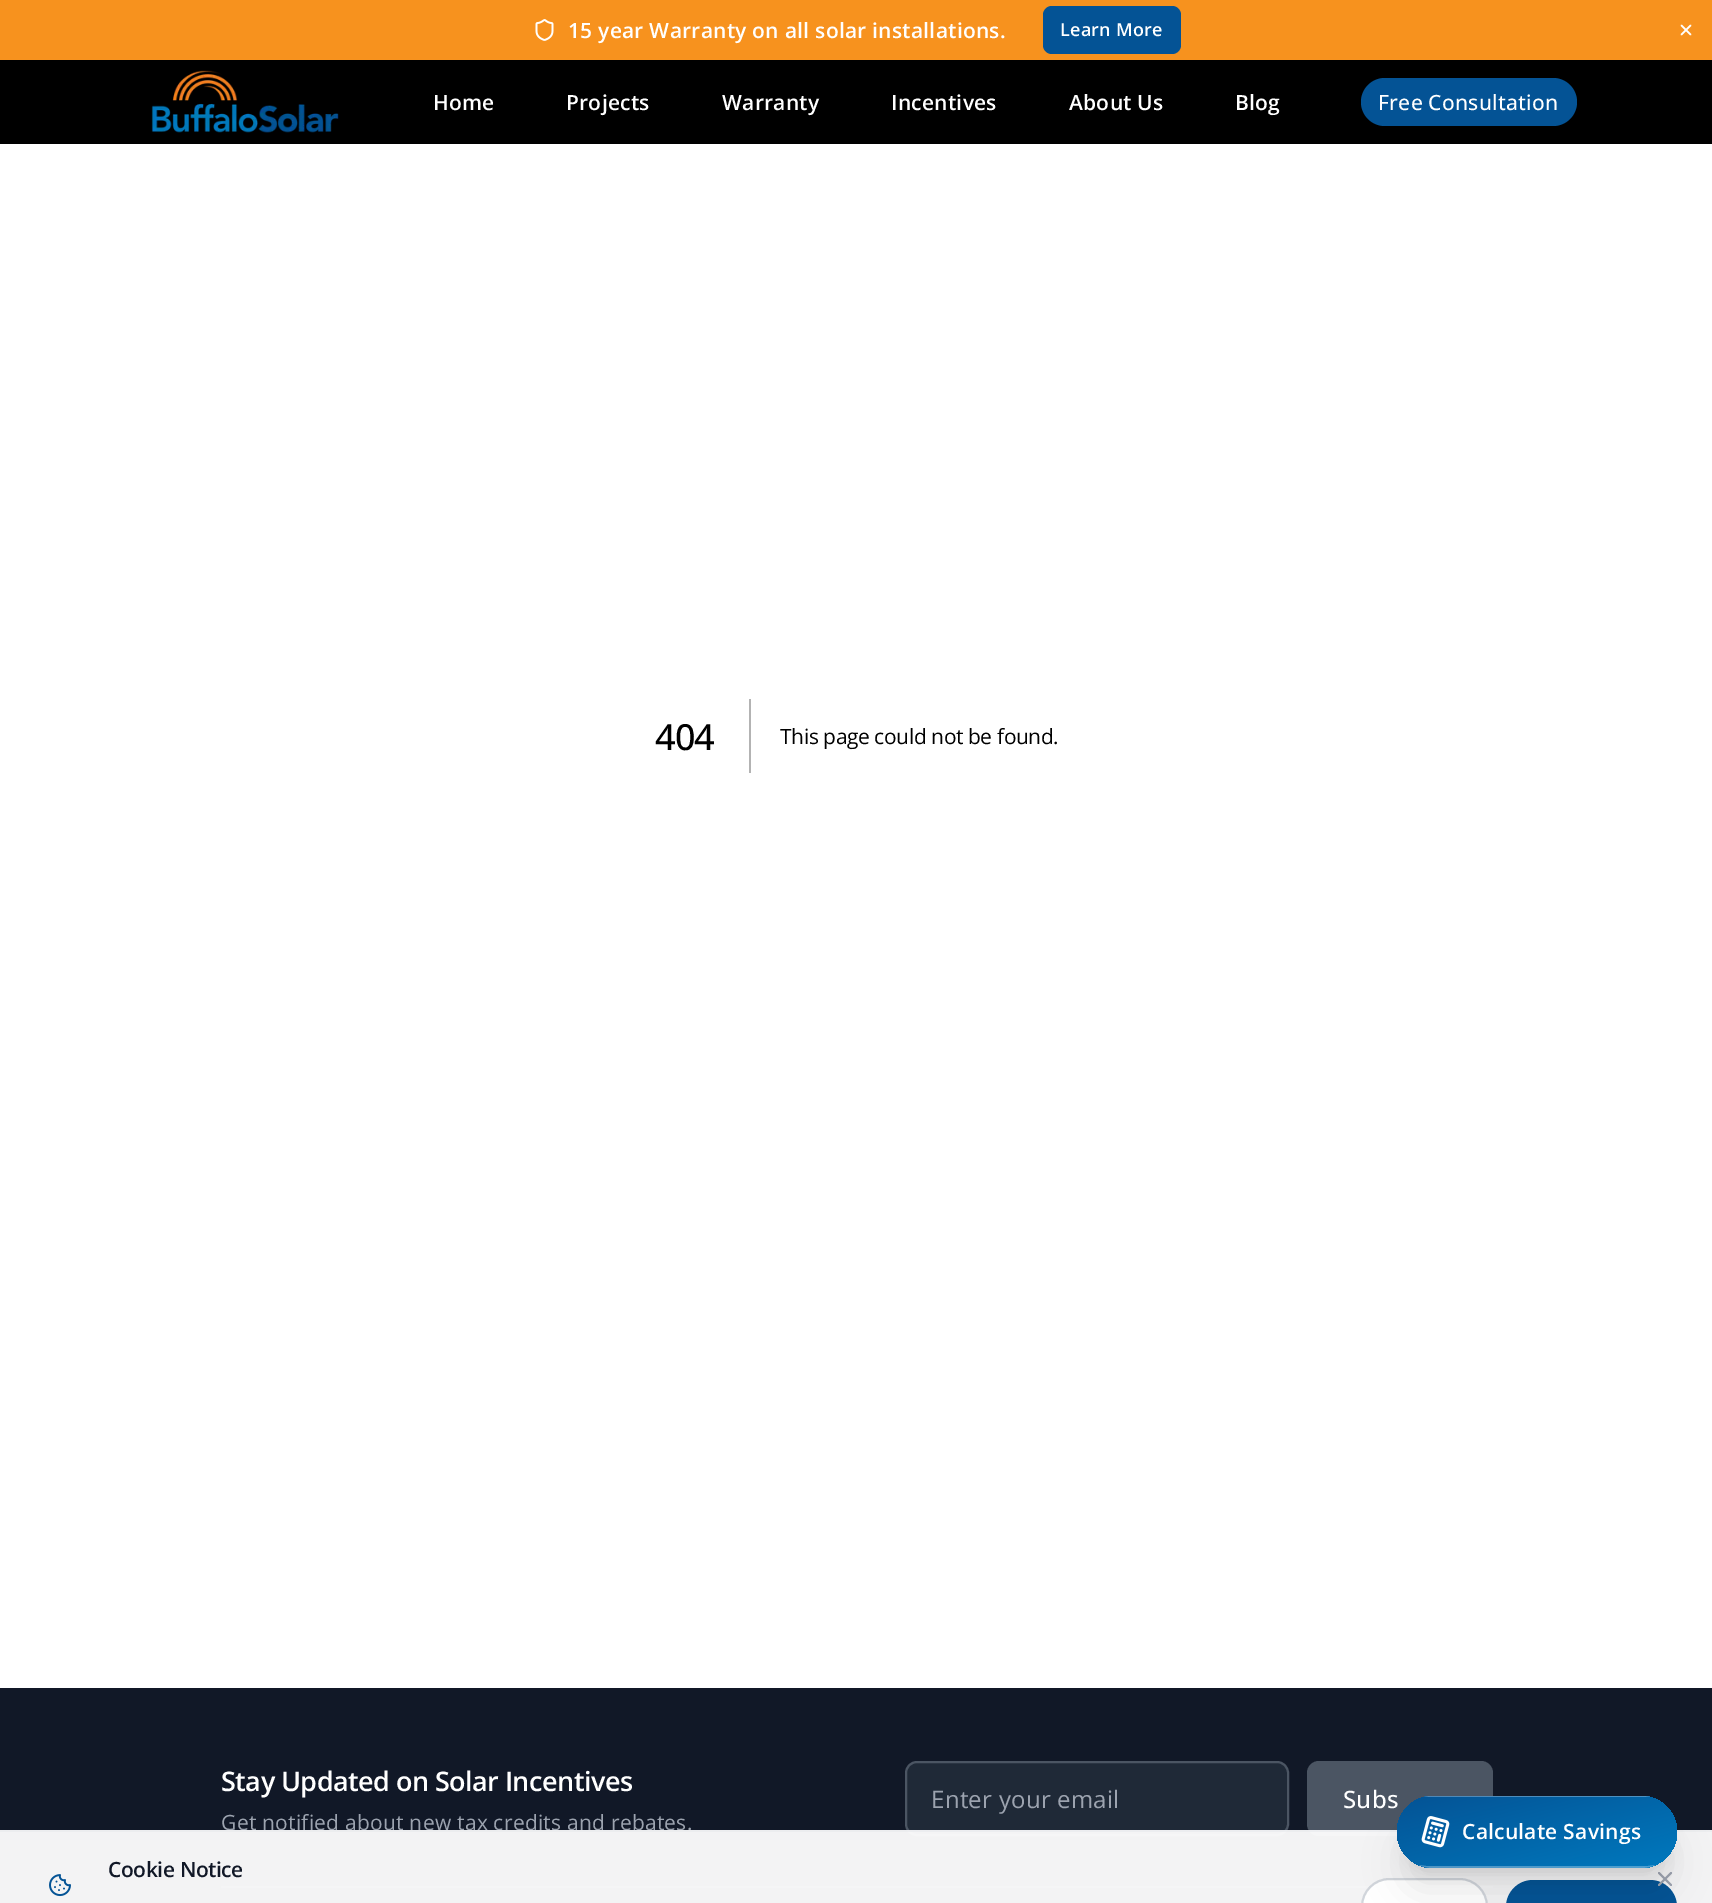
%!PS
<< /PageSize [1712 1903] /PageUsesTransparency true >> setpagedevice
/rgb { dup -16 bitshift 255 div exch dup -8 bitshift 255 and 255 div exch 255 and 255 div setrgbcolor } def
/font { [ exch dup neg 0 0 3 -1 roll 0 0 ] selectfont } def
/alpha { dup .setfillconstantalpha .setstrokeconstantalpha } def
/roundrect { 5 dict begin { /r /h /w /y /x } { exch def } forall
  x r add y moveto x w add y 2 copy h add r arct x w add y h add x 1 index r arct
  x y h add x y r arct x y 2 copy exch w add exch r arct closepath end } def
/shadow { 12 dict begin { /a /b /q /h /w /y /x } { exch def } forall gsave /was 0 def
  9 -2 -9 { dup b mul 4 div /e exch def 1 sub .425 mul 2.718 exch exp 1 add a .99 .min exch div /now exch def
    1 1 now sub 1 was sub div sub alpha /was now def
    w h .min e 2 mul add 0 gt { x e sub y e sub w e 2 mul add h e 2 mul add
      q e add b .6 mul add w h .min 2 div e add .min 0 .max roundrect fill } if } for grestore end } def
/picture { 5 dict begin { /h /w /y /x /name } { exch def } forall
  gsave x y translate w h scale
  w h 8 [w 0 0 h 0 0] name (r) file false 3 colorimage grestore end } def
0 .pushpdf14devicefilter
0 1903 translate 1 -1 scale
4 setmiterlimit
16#FFFFFF rgb
0 0 1712 1903 rectfill
16#F7921E rgb
0 0 1712 60 rectfill
(pic1.raw) 535 19 19 22 picture
/OpenSans-SemiBold 21 font
16#FFFFFF rgb
568 38 moveto 0.25 0 (15 year Warranty on all solar installations.) ashow
16#045395 rgb
1043 6 138 48 9 roundrect fill
/OpenSans-SemiBold 18 font
16#FFFFFF rgb
1060 36 moveto 0.25 0 (Learn More) ashow
1.5 setlinewidth
1 setlinecap
1 setlinejoin
1690.5 25.5 moveto 1681.5 34.5 lineto 1681.5 25.5 moveto 1690.5 34.5 lineto stroke
16#000000 rgb
0 60 1712 84 rectfill
(pic2.raw) 151 70 188 63 picture
/OpenSans-SemiBold 21 font
16#FFFFFF rgb
433 110 moveto 0.25 0 (Home) ashow
566 110 moveto 0.25 0 (Projects) ashow
722 110 moveto 0.25 0 (Warranty) ashow
891 110 moveto 0.25 0 (Incentives) ashow
1069 110 moveto 0.25 0 (About Us) ashow
1235 110 moveto 0.25 0 (Blog) ashow
16#045395 rgb
1361 78 216 48 24 roundrect fill
/OpenSans-Medium 21 font
16#FFFFFF rgb
1378 110 moveto 0.25 0 (Free Consultation) ashow
16#B3B3B3 rgb
749 699 2 74 rectfill
/OpenSans-Medium 36 font
16#000000 rgb
655 750 moveto -1 0 (404) ashow
/OpenSans-Regular 21 font
780 744 moveto -0.4 0 (This page could not be found.) ashow
16#111827 rgb
0 1688 1712 215 rectfill
16#374151 rgb
221 1886 1272 2 rectfill
/OpenSans-SemiBold 27 font
16#FFFFFF rgb
221 1791 moveto -0.55 0 (Stay Updated on Solar Incentives) ashow
/OpenSans-Regular 21 font
16#9CA3AF rgb
221 1830 moveto 0.25 0 (Get notified about new tax credits and rebates.) ashow
16#1F2937 rgb
906 1762 382 73 11 roundrect gsave fill grestore
16#4B5563 rgb
2 setlinewidth
0 setlinecap
0 setlinejoin
stroke
/OpenSans-Regular 24 font
16#9CA3AF rgb
931 1808 moveto 0.25 0 (Enter your email) ashow
16#4B5563 rgb
1307 1761 186 75 12 roundrect fill
/OpenSans-Medium 24 font
16#FFFFFF rgb
1343 1808 moveto 0.25 0 (Subs) ashow
0.95 alpha
0 1830 1712 73 rectfill
0.5 alpha
16#E5E7EB rgb
0 1830 1712 2 rectfill
1 alpha
16#FFFFFF rgb
1362 1879 125 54 27.5 roundrect gsave fill grestore
16#D1D5DB rgb
stroke
16#045395 rgb
1506 1880 171 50 27 roundrect fill
16#9CA3AF rgb
1 setlinecap
1 setlinejoin
1671 1873 moveto 1659 1885 lineto 1659 1873 moveto 1671 1885 lineto stroke
16#000000 rgb
1406 1817 262 54 27 7.5 0.1 shadow
1404 1833 266 57 28.5 19 0.1 shadow
gsave 1397 1796 280 72 36 roundrect clip newpath
<< /ShadingType 2 /ColorSpace /DeviceRGB /Coords [1519 1764 1554 1899] /Extend [true true] /Function << /FunctionType 2 /Domain [0 1] /C0 [0.016 0.325 0.584] /C1 [0 0.475 0.745] /N 1 >> >> shfill grestore
(pic3.raw) 1421 1816 29 32 picture
/OpenSans-SemiBold 21 font
16#FFFFFF rgb
1462 1839 moveto 0.25 0 (Calculate Savings) ashow
0.3 alpha
1426 1797 moveto 1650 1797 lineto 1647 1796 1644 1796 1641 1796 curveto 1433 1796 lineto 1430 1796 1427 1796 1424 1797 curveto closepath 1655 1865 moveto 1648 1866 lineto 1426 1866 lineto 1419 1865 lineto 1423 1867 1428 1868 1433 1868 curveto 1641 1868 lineto 1646 1868 1651 1867 1655 1865 curveto closepath eofill
1 alpha
(pic4.raw) 49 1874 22 23 picture
16#111827 rgb
108 1877 moveto -0.4 0 (Cookie Notice) ashow
.poppdf14devicefilter showpage
